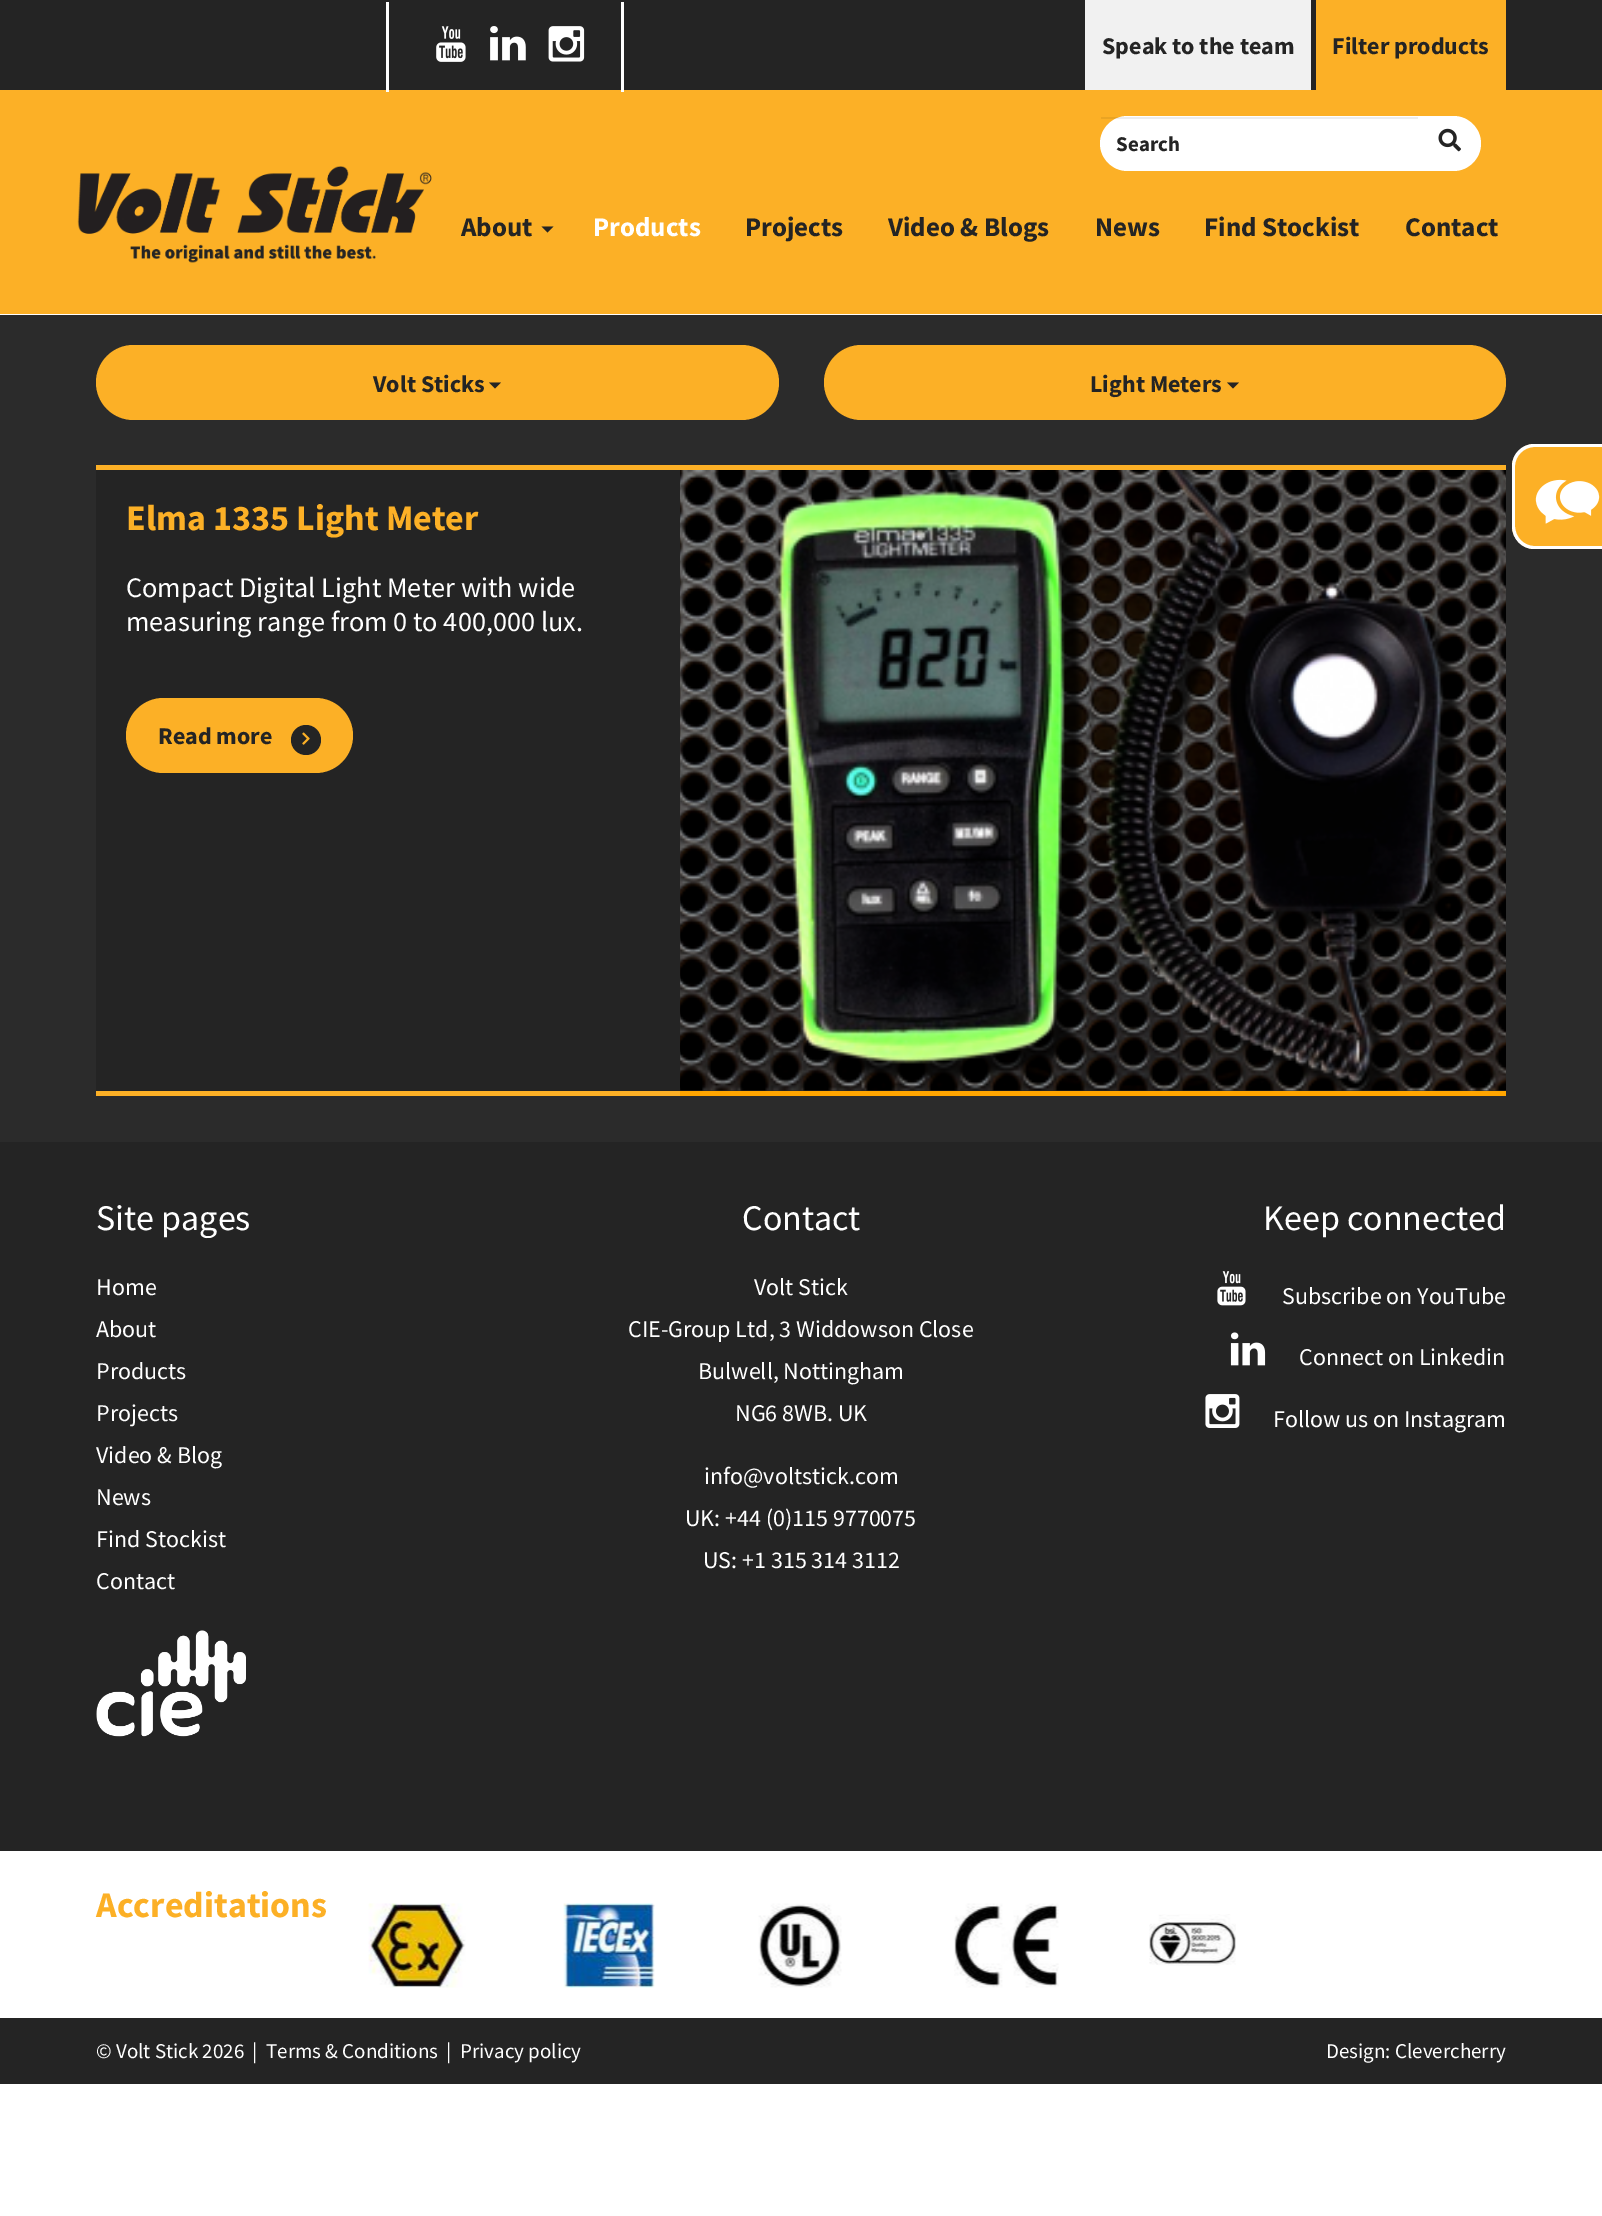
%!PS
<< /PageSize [1602 2216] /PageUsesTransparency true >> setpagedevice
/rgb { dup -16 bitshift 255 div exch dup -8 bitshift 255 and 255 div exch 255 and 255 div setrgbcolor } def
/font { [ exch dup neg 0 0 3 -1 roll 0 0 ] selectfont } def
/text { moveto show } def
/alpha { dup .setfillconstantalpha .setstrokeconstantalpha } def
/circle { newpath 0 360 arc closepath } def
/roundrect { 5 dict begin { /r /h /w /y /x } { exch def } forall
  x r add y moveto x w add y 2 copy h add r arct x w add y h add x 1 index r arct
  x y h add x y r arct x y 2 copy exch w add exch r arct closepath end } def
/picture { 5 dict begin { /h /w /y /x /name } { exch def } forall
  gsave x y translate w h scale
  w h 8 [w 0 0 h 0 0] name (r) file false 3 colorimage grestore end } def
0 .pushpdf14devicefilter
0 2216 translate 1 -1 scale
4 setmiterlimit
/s1 { /SourceSansPro-Bold 24 font 16#242424 rgb } def
/s2 { /SourceSansPro-Bold 21 font 16#242424 rgb } def
/s3 { /SourceSansPro-Bold 27 font 16#242424 rgb } def
/s4 { /SourceSansPro-Bold 27 font 16#FFFFFF rgb } def
/s5 { /SourceSansPro-Bold 36 font 16#FCB026 rgb } def
/s6 { /SourceSansPro-Regular 28.3 font 16#FFFFFF rgb } def
/s7 { /SourceSansPro-Regular 36 font 16#FFFFFF rgb } def
/s8 { /SourceSansPro-Regular 24 font 16#FFFFFF rgb } def
/s9 { /SourceSansPro-Regular 21 font 16#FFFFFF rgb } def
16#FFFFFF rgb
0 0 1602 2216 rectfill
16#242424 rgb
0 0 1602 90 rectfill
16#FCB026 rgb
0 90 1602 224 rectfill
16#FFFFFF rgb
386 2 3 90 rectfill
(pic1.raw) 436 26 30 36 picture
(pic2.raw) 490 26 36 35 picture
(pic3.raw) 548 26 37 36 picture
621 2 3 90 rectfill
16#F1F1F1 rgb
1085 0 226 90 rectfill
s1
(Speak to the team) 1102 54 text
16#FCB026 rgb
1316 0 190 90 rectfill
s1
(Filter products) 1332 54 text
16#FFFFFF rgb
1127.5 116 moveto 1419 116 lineto 1419 171 lineto 1127.5 171 lineto 1112.5 171 1100 158.5 1100 143.5 curveto 1100 128.5 1112.5 116 1127.5 116 curveto closepath fill
0.07 alpha
16#000000 rgb
1101 117 317 2 rectfill
1 alpha
s2
(Search) 1116 151 text
16#FFFFFF rgb
1419 116 moveto 1453.5 116 lineto 1468.5 116 1481 128.5 1481 143.5 curveto 1481 158.5 1468.5 171 1453.5 171 curveto 1419 171 lineto closepath fill
(pic4.raw) 1438 128 23 24 picture
(pic5.raw) 77 166 355 97 picture
s3
(About) 461 236 text
541.5 226.5 moveto 553.5 226.5 lineto 547.5 232.5 lineto closepath fill
s4
(Products) 593 236 text
s3
(Projects) 745 236 text
(Video & Blogs) 888 236 text
(News) 1095 236 text
(Find Stockist) 1204 236 text
(Contact) 1405 236 text
16#2B2B2B rgb
0 315 1602 827 rectfill
16#FCB026 rgb
96 345 683 75 37.5 roundrect fill
s1
(Volt Sticks) 373 392 text
489 382.5 moveto 501 382.5 lineto 495 388.5 lineto closepath fill
16#FCB026 rgb
824 345 682 75 37.5 roundrect fill
s1
(Light Meters) 1090 392 text
1227 382.5 moveto 1239 382.5 lineto 1233 388.5 lineto closepath fill
(pic6.raw) 680 470 826 621 picture
16#FCB026 rgb
96 465 1410 5 rectfill
16#FFA500 rgb
680 1091 826 5 rectfill
16#242424 rgb
96 470 584 621 rectfill
16#FCB026 rgb
96 1091 584 5 rectfill
s5
(Elma 1335 Light Meter) 126 530 text
s6
(Compact Digital Light Meter with wide) 126 597 text
(measuring range from 0 to 400,000 lux.) 126 631 text
16#FCB026 rgb
126 698 227 75 37.5 roundrect fill
s1
(Read more) 158 744 text
306 740 15 circle fill
(pic7.raw) 302 732 8 13 picture
16#FCB026 rgb
1535 444 moveto 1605 444 lineto 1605 549 lineto 1535 549 lineto 1522.5 549 1512 538.5 1512 526 curveto 1512 467 lineto 1512 454.5 1522.5 444 1535 444 curveto closepath fill
16#FFFFFF rgb
1534 444 moveto 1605 444 lineto 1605 549 lineto 1534 549 lineto 1522 549 1512 539 1512 526 curveto 1512 466 lineto 1512 454 1522 444 1534 444 curveto closepath 1534 447 moveto 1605 447 lineto 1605 546 lineto 1534 546 lineto 1524 546 1515 537 1515 526 curveto 1515 466 lineto 1515 456 1524 447 1534 447 curveto closepath eofill
(pic8.raw) 1535 479 65 45 picture
16#242424 rgb
0 1142 1602 709 rectfill
s7
(Site pages) 96 1230 text
s8
(Home) 96 1295 text
(About) 96 1337 text
(Products) 96 1379 text
(Projects) 96 1421 text
(Video & Blog) 96 1463 text
(News) 96 1505 text
(Find Stockist) 96 1547 text
(Contact) 96 1589 text
(pic9.raw) 96 1630 150 107 picture
s7
(Contact) 742 1230 text
s8
(Volt Stick) 754 1295 text
(CIE-Group Ltd, 3 Widdowson Close) 628 1337 text
(Bulwell, Nottingham) 698 1379 text
(NG6 8WB. UK) 735 1421 text
(info@voltstick.com) 704 1484 text
(UK: +44 \(0\)115 9770075) 685 1526 text
(US: +1 315 314 3112) 703 1568 text
s7
(Keep connected) 1263 1230 text
(pic10.raw) 1217 1271 29 35 picture
s8
(Subscribe on YouTube) 1282 1304 text
(pic11.raw) 1230 1332 36 34 picture
(Connect on Linkedin) 1299 1365 text
(pic12.raw) 1205 1394 35 34 picture
(Follow us on Instagram) 1273 1427 text
s5
(Accreditations) 96 1917 text
(pic13.raw) 368 1903 98 85 picture
(pic14.raw) 563 1903 92 85 picture
(pic15.raw) 758 1903 84 85 picture
(pic16.raw) 954 1903 105 85 picture
(pic17.raw) 1149 1914 87 52 picture
16#242424 rgb
0 2018 1602 66 rectfill
s9
(© Volt Stick 2026  |) 96 2058 text
(Terms & Conditions) 266 2058 text
(|) 446 2058 text
(Privacy policy) 460 2058 text
(Design: Clevercherry) 1326 2058 text
.poppdf14devicefilter showpage
